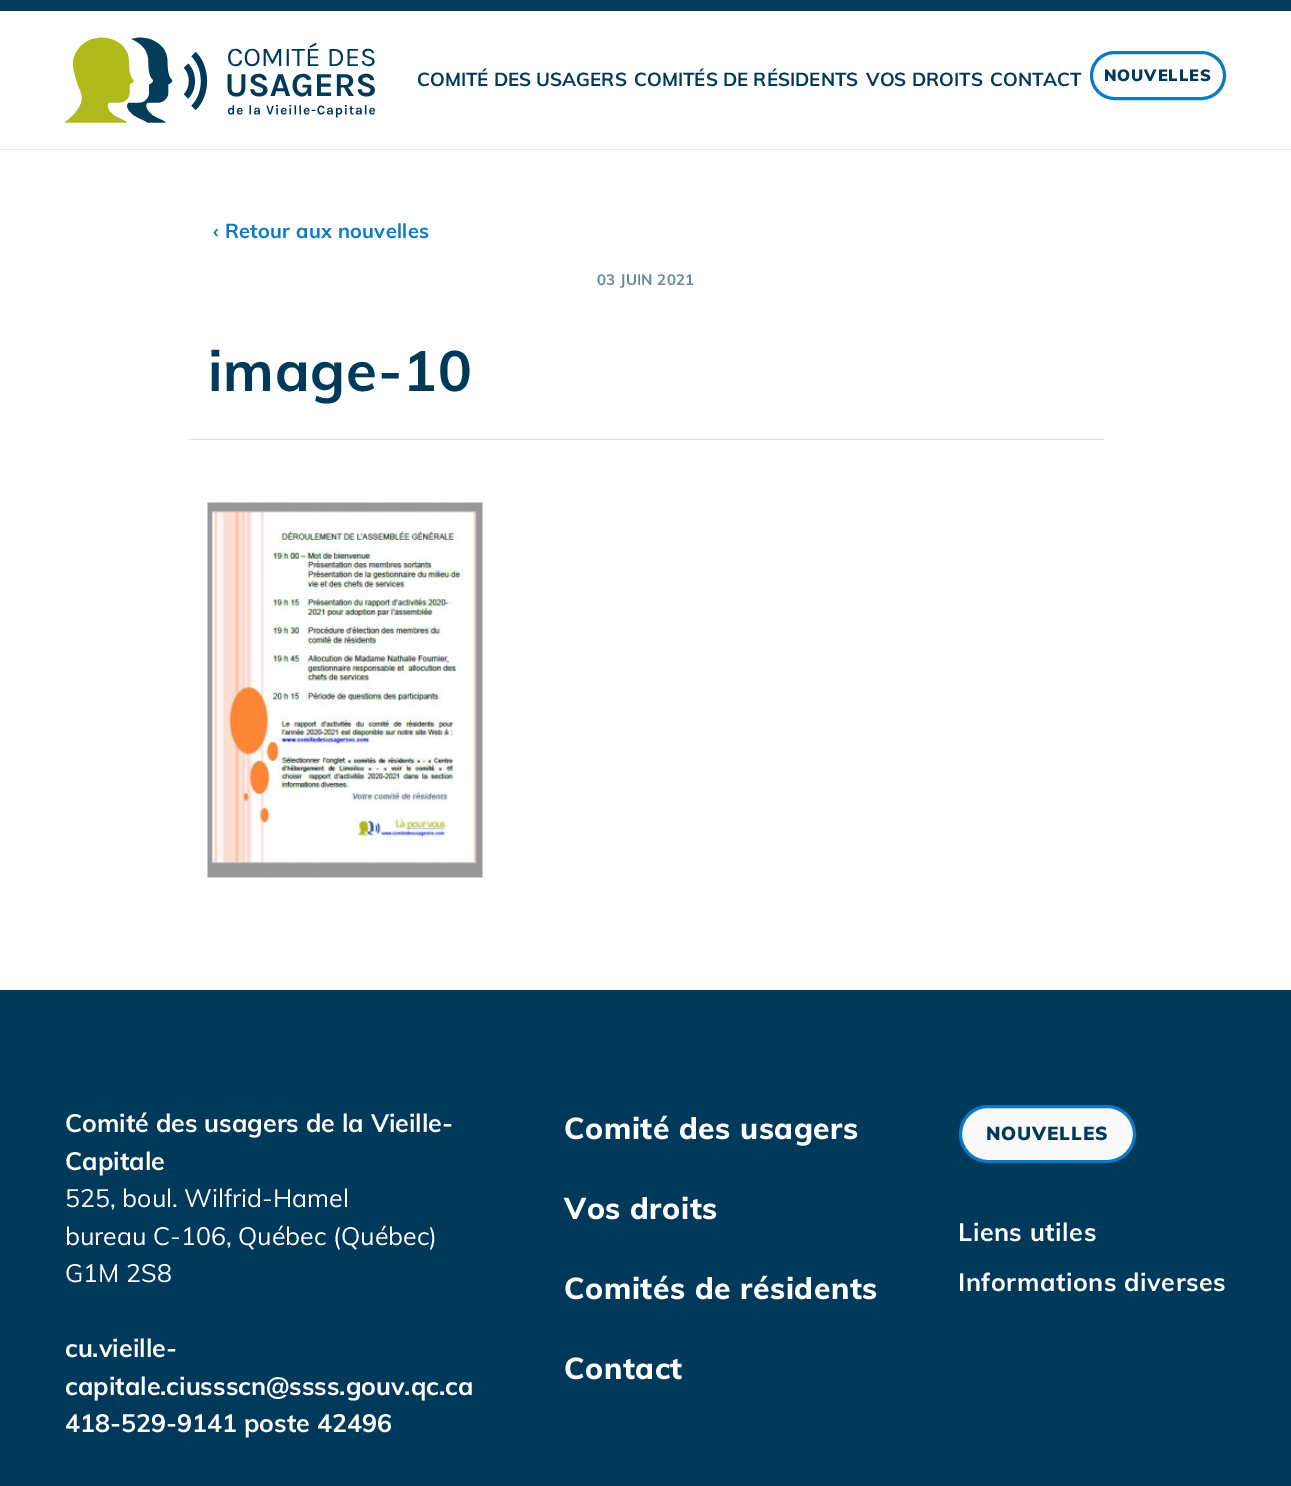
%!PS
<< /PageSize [1291 1486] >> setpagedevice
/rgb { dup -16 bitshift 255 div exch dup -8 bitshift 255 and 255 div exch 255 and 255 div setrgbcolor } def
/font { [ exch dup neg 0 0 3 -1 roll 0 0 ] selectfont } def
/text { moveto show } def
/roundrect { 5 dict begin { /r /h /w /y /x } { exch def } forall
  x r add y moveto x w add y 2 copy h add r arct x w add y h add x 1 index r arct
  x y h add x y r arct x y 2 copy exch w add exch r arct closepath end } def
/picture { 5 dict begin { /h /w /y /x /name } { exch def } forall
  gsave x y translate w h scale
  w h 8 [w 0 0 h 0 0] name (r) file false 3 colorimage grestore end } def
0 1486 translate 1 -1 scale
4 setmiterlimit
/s1 { /Muli-Bold 18.75 font 16#00395A rgb } def
/s2 { /Muli-Bold 25 font 16#FFFFFF rgb } def
/s3 { /Muli-Regular 25 font 16#FFFFFF rgb } def
16#FFFFFF rgb
0 0 1291 1486 rectfill
16#003B5C rgb
0 0 1291 11 rectfill
16#E8E8E8 rgb
0 149 1291 1 rectfill
(pic1.raw) 65 37 310 86 picture
s1
(COMITÉ DES USAGERS) 417 86 text
(COMITÉS DE RÉSIDENTS) 634 86 text
(VOS DROITS) 866 86 text
(CONTACT) 990 86 text
16#0A7BC2 rgb
3 setlinewidth
1091.5 52.5 133 46 23 roundrect stroke
/Muli-Black 16.25 font
16#00395A rgb
1104 81 moveto 0.9 0 (NOUVELLES) ashow
/Muli-Bold 20 font
16#0A7BC2 rgb
213 238 moveto 0.25 0 (‹ Retour aux nouvelles) ashow
/Muli-Bold 15 font
16#66899D rgb
597 285 moveto 0.25 0 (03 JUIN 2021) ashow
/Muli-Bold 56.25 font
16#00395A rgb
208 391 moveto 0.75 0 (image-10) ashow
16#E1E2E3 rgb
188 439 916 1 rectfill
(pic2.raw) 207 502 276 376 picture
16#00395A rgb
0 990 1291 496 rectfill
s2
(Comité des usagers de la Vieille-) 65 1132 text
(Capitale) 65 1170 text
s3
(525, boul. Wilfrid-Hamel) 65 1207 text
(bureau C-106, Québec \(Québec\)) 65 1245 text
(G1M 2S8) 65 1282 text
s2
(cu.vieille-) 65 1357 text
(capitale.ciussscn@ssss.gouv.qc.ca) 65 1395 text
(418-529-9141 poste 42496) 65 1432 text
/Muli-ExtraBold 30 font
564 1139 moveto 0.55 0 (Comité des usagers) ashow
564 1219 moveto 0.55 0 (Vos droits) ashow
564 1299 moveto 0.55 0 (Comités de résidents) ashow
564 1379 moveto 0.55 0 (Contact) ashow
16#F9F9F9 rgb
960.5 1106.5 174 55 27.5 roundrect gsave fill grestore
16#0A7BC2 rgb
stroke
/Muli-Black 18.75 font
16#00395A rgb
986 1140 moveto 0.9 0 (NOUVELLES) ashow
/Muli-Bold 25 font
16#FFFFFF rgb
958 1241 moveto 0.55 0 (Liens utiles) ashow
958 1291 moveto 0.55 0 (Informations diverses) ashow
showpage
